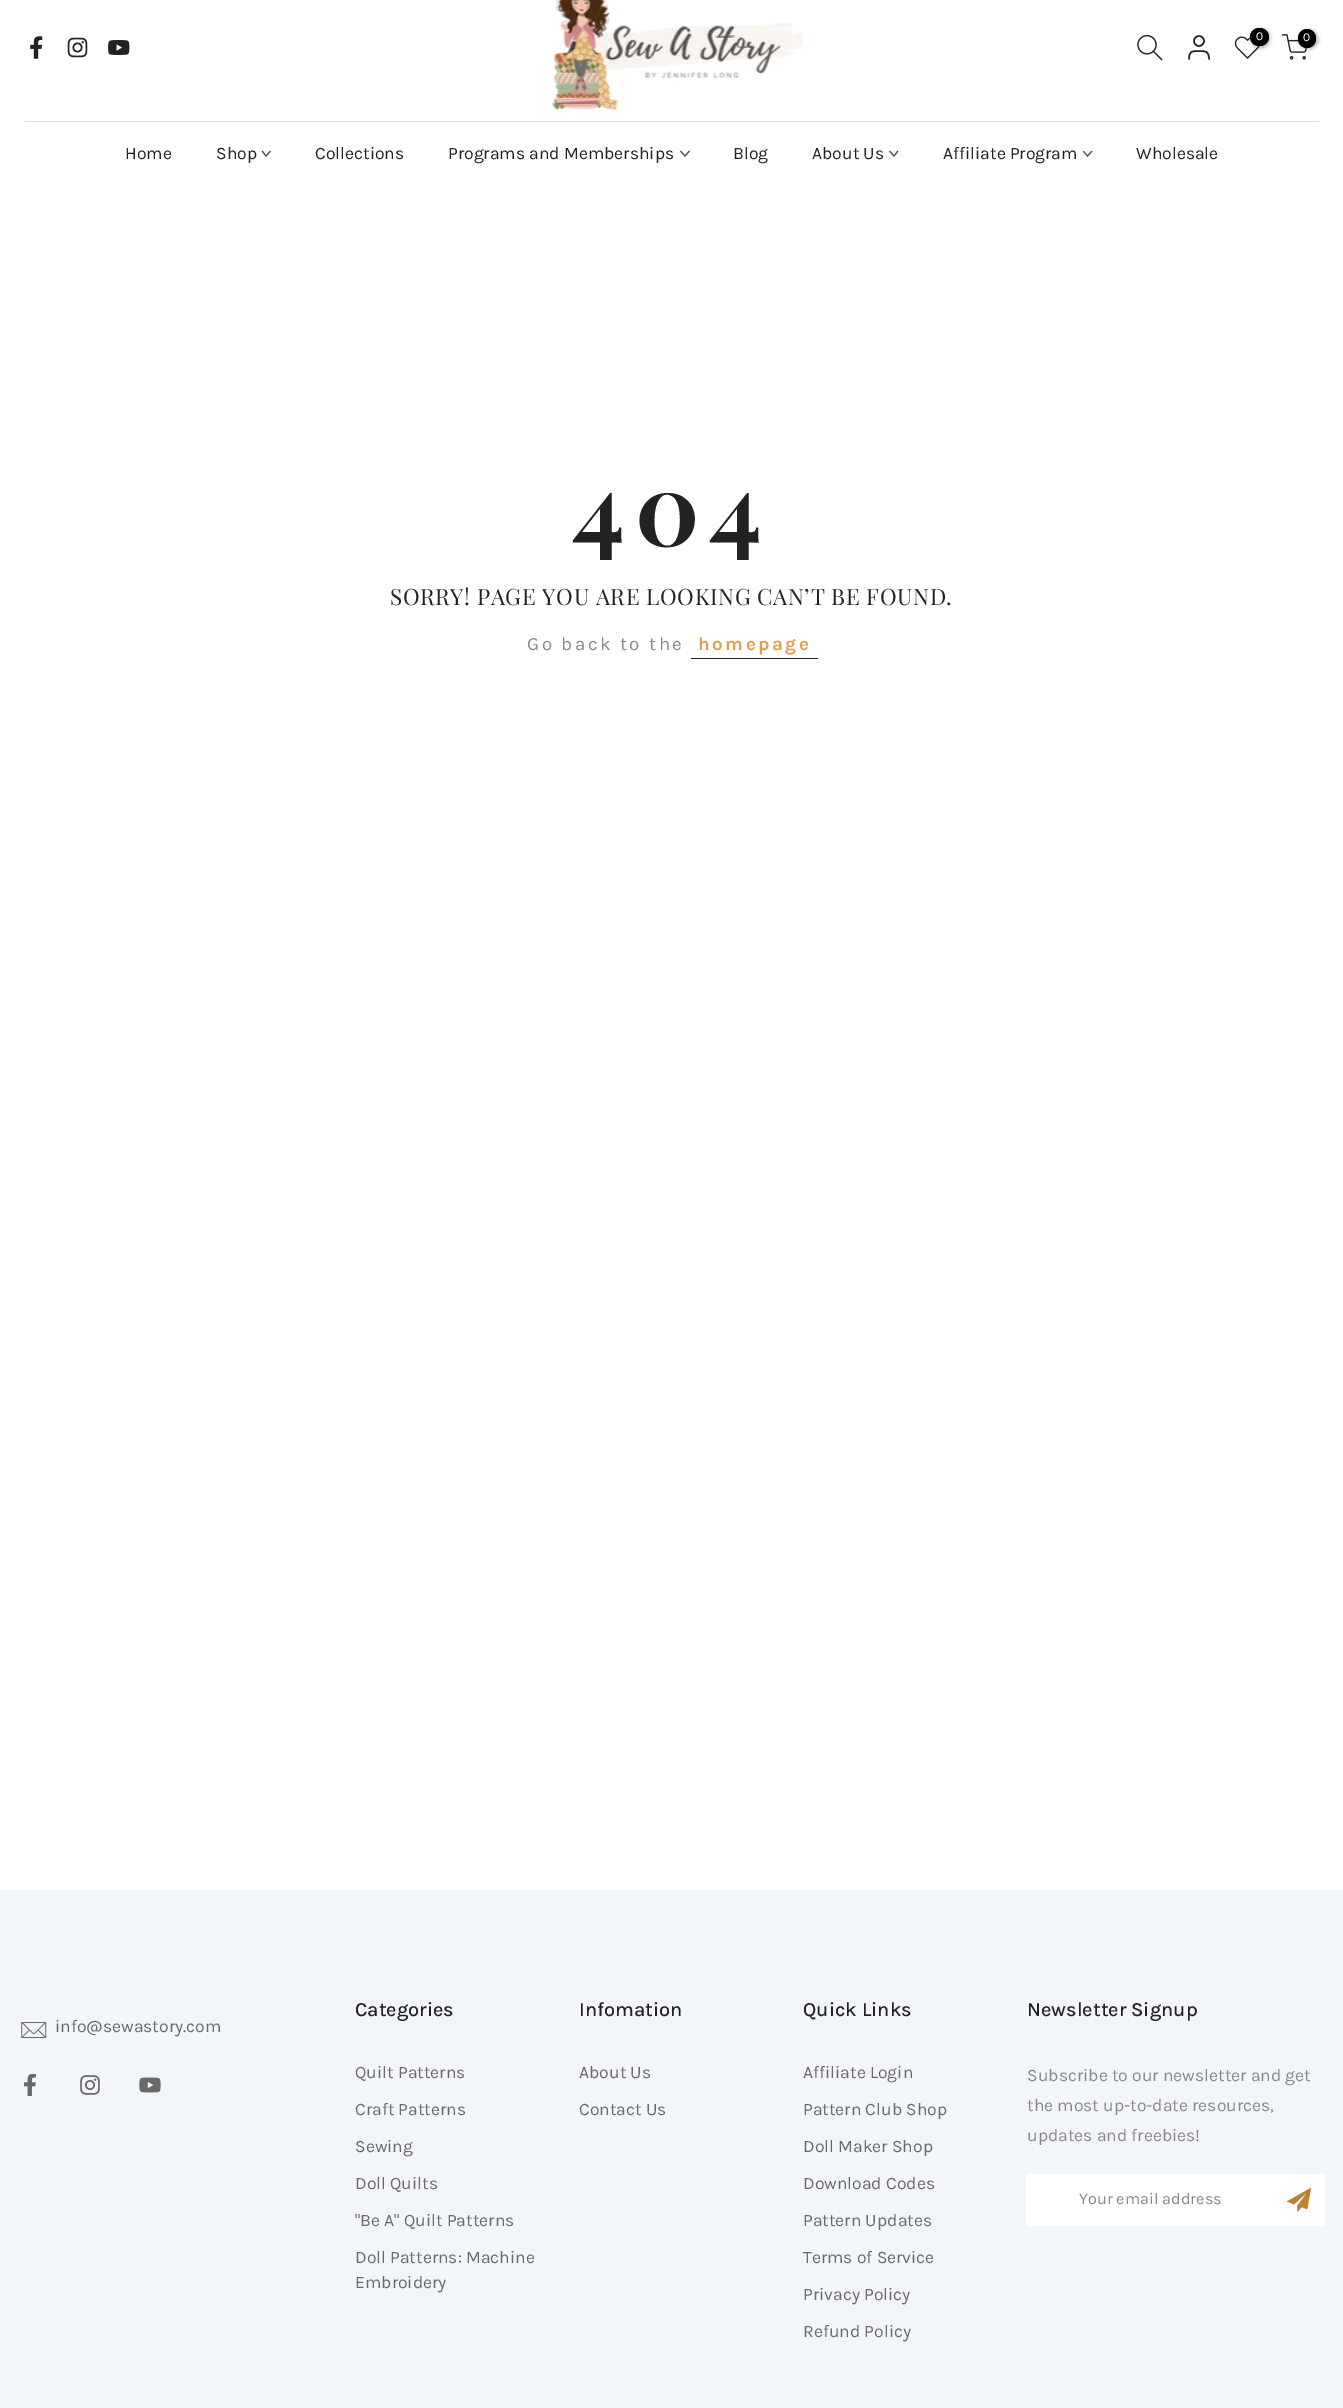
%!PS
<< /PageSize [1343 2408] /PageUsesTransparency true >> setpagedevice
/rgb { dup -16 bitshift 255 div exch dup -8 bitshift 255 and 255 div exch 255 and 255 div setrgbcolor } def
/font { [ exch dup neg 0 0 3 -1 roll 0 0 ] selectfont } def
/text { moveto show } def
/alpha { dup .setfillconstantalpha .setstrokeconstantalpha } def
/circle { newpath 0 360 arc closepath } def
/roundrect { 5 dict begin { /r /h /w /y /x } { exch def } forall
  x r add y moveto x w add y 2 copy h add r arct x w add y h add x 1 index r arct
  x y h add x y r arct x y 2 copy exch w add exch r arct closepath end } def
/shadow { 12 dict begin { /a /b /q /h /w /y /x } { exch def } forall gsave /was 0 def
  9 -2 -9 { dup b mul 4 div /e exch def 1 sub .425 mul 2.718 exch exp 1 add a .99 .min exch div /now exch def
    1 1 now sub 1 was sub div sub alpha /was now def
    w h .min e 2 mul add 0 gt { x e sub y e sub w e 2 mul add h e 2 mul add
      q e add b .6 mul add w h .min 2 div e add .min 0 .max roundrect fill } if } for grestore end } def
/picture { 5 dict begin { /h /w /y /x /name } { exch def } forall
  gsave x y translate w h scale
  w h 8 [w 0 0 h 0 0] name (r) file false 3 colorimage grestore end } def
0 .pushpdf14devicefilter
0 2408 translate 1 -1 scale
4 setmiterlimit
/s1 { /Karla-Regular 12 font 16#FFFFFF rgb } def
/s2 { /Karla-Regular 17.5 font 16#222222 rgb } def
/s3 { /Karla-Regular 17.5 font 16#696969 rgb } def
/s4 { /Karla-Medium 20 font 16#222222 rgb } def
/s5 { /Karla-Regular 17.5 font 16#878787 rgb } def
/s6 { /Karla-Regular 16.25 font 16#878787 rgb } def
16#FFFFFF rgb
0 0 1343 2408 rectfill
16#DEDEDE rgb
25 121 1294 1 rectfill
(pic1.raw) 30 36 13 23 picture
(pic2.raw) 67 37 21 21 picture
(pic3.raw) 108 40 22 15 picture
(pic4.raw) 551 0 252 111 picture
(pic5.raw) 1137 34 26 27 picture
16#222222 rgb
1.5 setlinewidth
1199 41 5 circle stroke
1 setlinecap
1 setlinejoin
1209 59 moveto 1209 51 1205.5 51 1199 51 curveto 1192 51 1189 51 1189 59 curveto stroke
(pic6.raw) 1234 36 26 23 picture
16#000000 rgb
1251 29 19 19 9.5 2 0.3 shadow
1250 28 19 18 9 roundrect fill
s1
(0) 1256 40 text
(pic7.raw) 1281 34 27 26 picture
16#000000 rgb
1299 30 19 19 9.5 2 0.3 shadow
1298 29 18 19 9 roundrect fill
s1
(0) 1303 41 text
s2
(Home) 125 159 text
(Shop) 216 159 text
16#4E4E4E rgb
1.1 setlinewidth
2 setlinecap
0 setlinejoin
270 151.5 moveto 266 156 lineto 262.5 151.5 lineto stroke
s2
(Collections) 315 159 text
(Programs and Memberships) 448 159 text
16#4E4E4E rgb
689 151.5 moveto 685 156 lineto 681 151.5 lineto stroke
s2
(Blog) 733 159 text
(About Us) 812 159 text
16#4E4E4E rgb
897.5 151.5 moveto 894 156 lineto 890 151.5 lineto stroke
s2
(Affiliate Program) 943 159 text
gsave
1083 151 10 6 rectclip
16#4E4E4E rgb
1091.5 151.5 moveto 1087.5 156 lineto 1083.5 151.5 lineto stroke
grestore
(Wholesale) 1136 159 text
/PlayfairDisplay-Bold 100 font
572 546 moveto 10 0 (404) ashow
/PlayfairDisplay-Regular 22.5 font
390 605 moveto 0.6 0 (SORRY! PAGE YOU ARE LOOKING CAN’T BE FOUND.) ashow
/Karla-Regular 18.75 font
16#878787 rgb
527 650 moveto 2.5 0 (Go back to the) ashow
/Karla-Bold 18.75 font
16#DCA051 rgb
698 650 moveto 2.5 0 (homepage) ashow
16#222222 rgb
691 658 127 1 rectfill
16#F2F6F8 rgb
0 1890 1343 518 rectfill
(pic8.raw) 21 2022 26 16 picture
s3
(info@sewastory.com) 55 2032 text
(pic9.raw) 24 2074 12 22 picture
(pic10.raw) 80 2075 20 20 picture
(pic11.raw) 139 2077 22 16 picture
s4
(Categories) 355 2016 text
s3
(Quilt Patterns) 355 2078 text
(Craft Patterns) 355 2115 text
(Sewing) 355 2152 text
(Doll Quilts) 355 2189 text
("Be A" Quilt Patterns) 355 2226 text
(Doll Patterns: Machine) 355 2263 text
(Embroidery) 355 2288 text
s4
(Infomation) 579 2016 text
s3
(About Us) 579 2078 text
(Contact Us) 579 2115 text
s4
(Quick Links) 803 2016 text
s3
(Affiliate Login) 803 2078 text
(Pattern Club Shop) 803 2115 text
(Doll Maker Shop) 803 2152 text
(Download Codes) 803 2189 text
(Pattern Updates) 803 2226 text
(Terms of Service) 803 2263 text
(Privacy Policy) 803 2300 text
(Refund Policy) 803 2337 text
s4
(Newsletter Signup) 1027 2016 text
s5
(Subscribe to our newsletter and get) 1027 2081 text
(the most up-to-date resources,) 1027 2111 text
(updates and freebies!) 1027 2141 text
16#FFFFFF rgb
1026 2174 299 52 rectfill
s6
(Your email address) 1079 2204 text
(pic12.raw) 1286 2188 25 25 picture
.poppdf14devicefilter showpage
